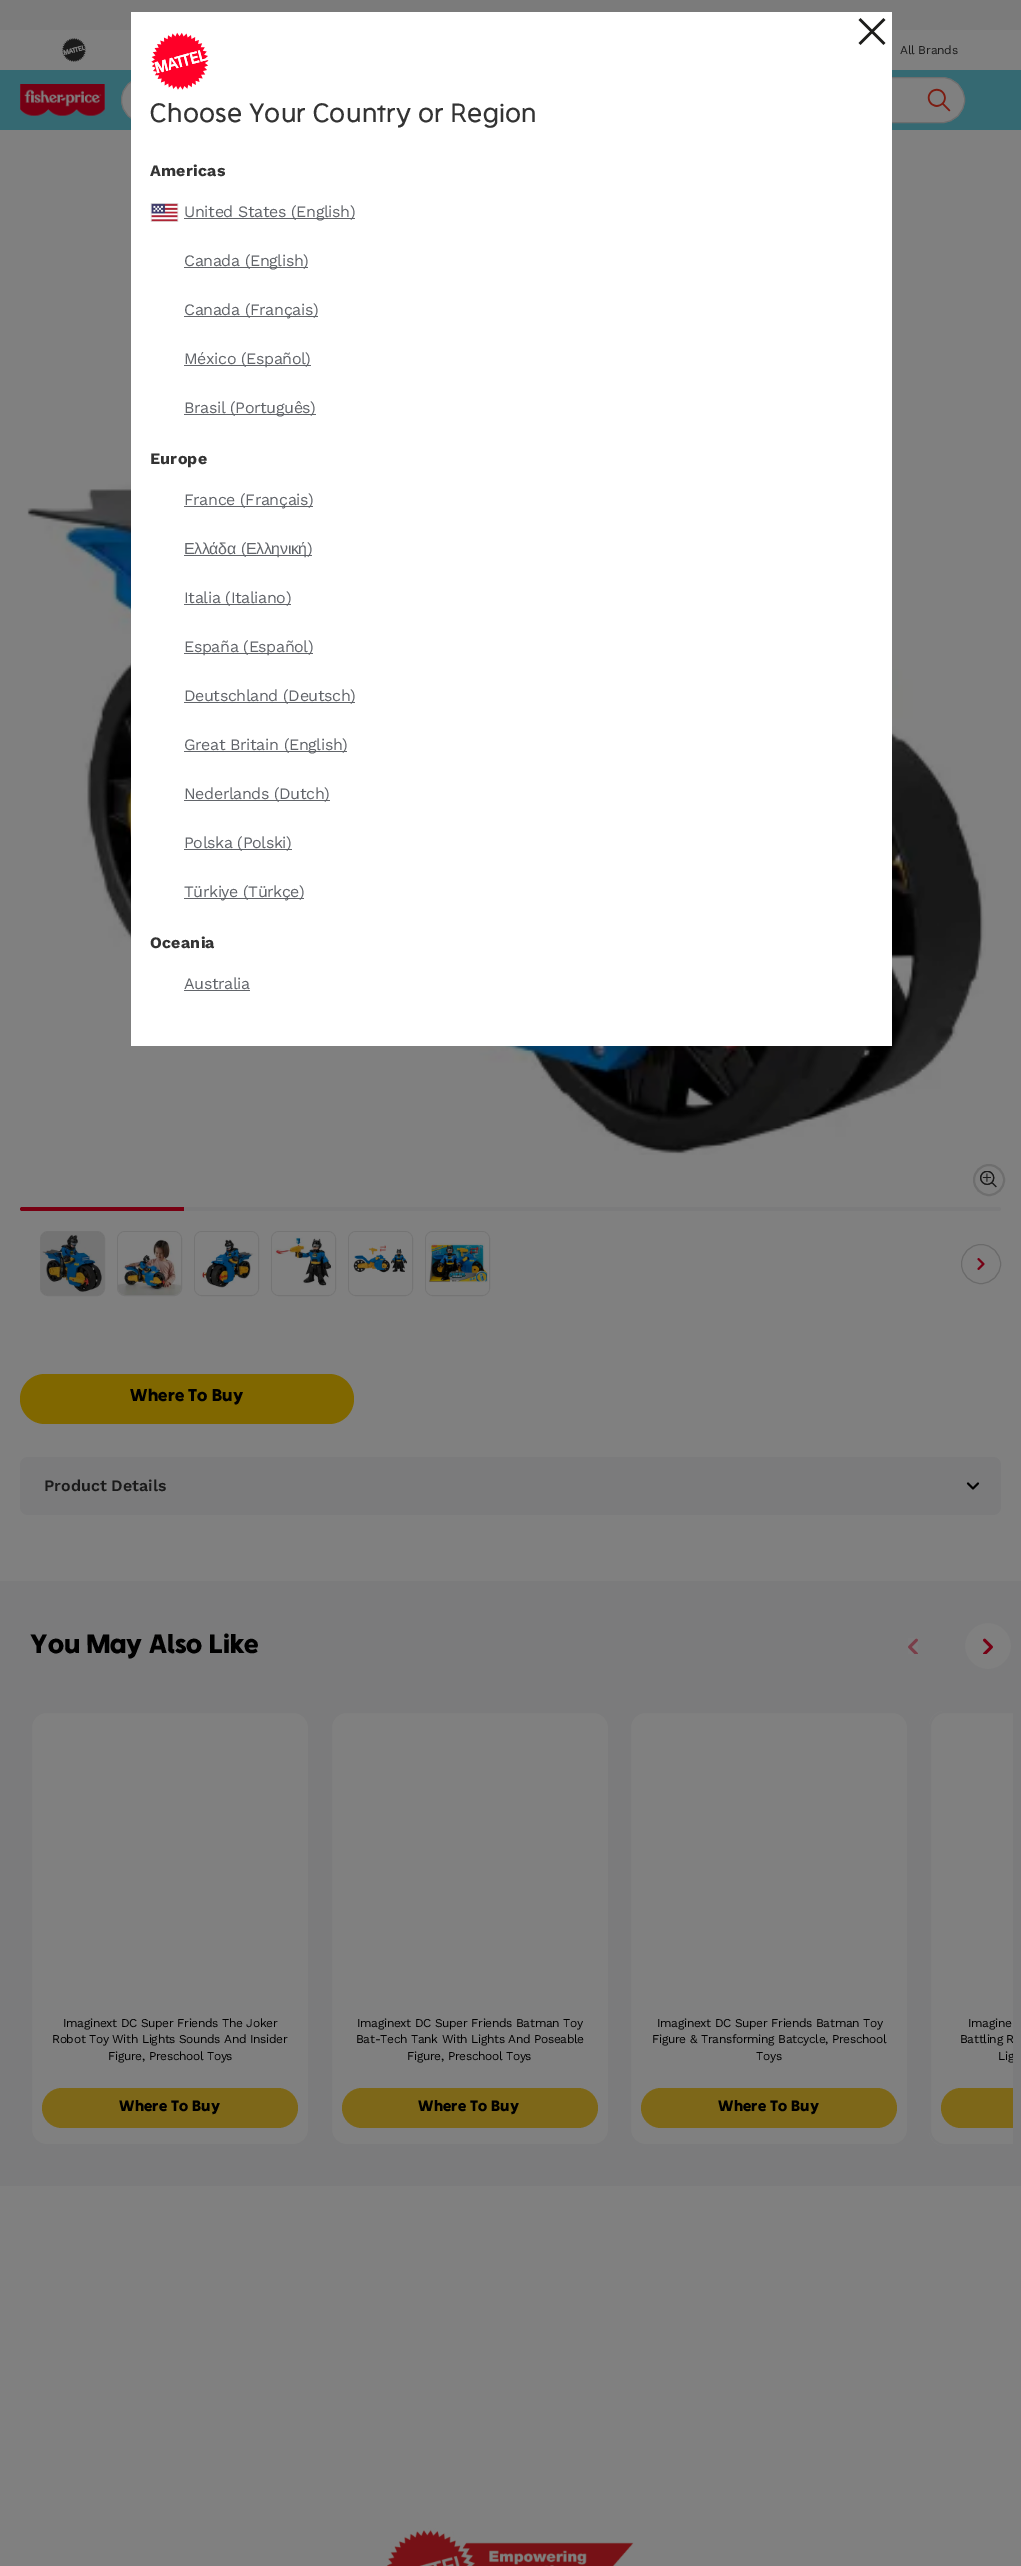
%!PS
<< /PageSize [1021 2566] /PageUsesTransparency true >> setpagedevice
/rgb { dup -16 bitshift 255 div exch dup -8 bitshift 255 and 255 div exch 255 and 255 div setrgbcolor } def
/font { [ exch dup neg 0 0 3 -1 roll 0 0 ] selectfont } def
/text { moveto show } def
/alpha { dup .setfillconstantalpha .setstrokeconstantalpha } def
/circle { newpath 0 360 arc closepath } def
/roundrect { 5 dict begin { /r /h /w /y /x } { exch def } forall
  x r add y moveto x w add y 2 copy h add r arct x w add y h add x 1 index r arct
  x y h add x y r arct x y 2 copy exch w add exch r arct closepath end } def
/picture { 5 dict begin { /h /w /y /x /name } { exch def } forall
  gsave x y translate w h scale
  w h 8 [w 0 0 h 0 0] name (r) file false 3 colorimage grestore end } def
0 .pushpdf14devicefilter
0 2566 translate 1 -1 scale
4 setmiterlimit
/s1 { /WorkSans-SemiBold 16 font 16#1A1A1A rgb } def
16#808080 rgb
0 0 1021 2566 rectfill
16#7B7B7B rgb
0 0 1021 30 rectfill
(pic1.raw) 62 38 24 24 picture
/WorkSans-Regular 12 font
16#1A1A1A rgb
900 54 moveto -0.25 0 (All Brands) ashow
16#356972 rgb
0 70 1021 60 rectfill
(pic2.raw) 20 84 85 32 picture
16#808080 rgb
121.5 77.5 843 45 22.5 roundrect gsave fill grestore
16#6E6E6E rgb
stroke
(pic3.raw) 927 88 24 24 picture
(pic7.raw) 27 234 959 921 picture
16#FFFFFF rgb
131 12 761 1034 rectfill
(pic4.raw) 858 18 28 27 picture
(pic5.raw) 151 32 58 58 picture
/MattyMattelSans-Regular 28 font
16#333333 rgb
150 122 moveto 0.25 0 (Choose Your Country or Region) ashow
/WorkSans-Bold 16 font
150 176 moveto 0.25 0 (Americas) ashow
(pic6.raw) 150 203 29 19 picture
16#62656A rgb
184 218 171 1 rectfill
/WorkSans-Regular 16 font
184 217 moveto -0.4 0 (United States \(English\)) ashow
184 267 124 1 rectfill
184 266 moveto -0.4 0 (Canada \(English\)) ashow
184 316 134 1 rectfill
184 315 moveto -0.4 0 (Canada \(Français\)) ashow
184 365 127 1 rectfill
184 364 moveto -0.4 0 (México \(Español\)) ashow
184 414 132 1 rectfill
184 413 moveto -0.4 0 (Brasil \(Português\)) ashow
/WorkSans-Bold 16 font
16#333333 rgb
150 464 moveto 0.25 0 (Europe) ashow
16#62656A rgb
184 506 129 1 rectfill
/WorkSans-Regular 16 font
184 505 moveto -0.4 0 (France \(Français\)) ashow
/LiberationSans-Regular 16 font
184 554 moveto -0.4 0 (Ελλάδα) ashow
184 555 128 1 rectfill
/WorkSans-Regular 16 font
241 554 moveto -0.4 0 (\() ashow
/LiberationSans-Regular 16 font
246 554 moveto -0.4 0 (Ελληνική) ashow
/WorkSans-Regular 16 font
307 554 moveto -0.4 0 (\)) ashow
184 604 107 1 rectfill
184 603 moveto -0.4 0 (Italia \(Italiano\)) ashow
184 653 129 1 rectfill
184 652 moveto -0.4 0 (España \(Español\)) ashow
184 702 171 1 rectfill
184 701 moveto -0.4 0 (Deutschland \(Deutsch\)) ashow
184 751 163 1 rectfill
184 750 moveto -0.4 0 (Great Britain \(English\)) ashow
184 800 146 1 rectfill
184 799 moveto -0.4 0 (Nederlands \(Dutch\)) ashow
184 849 108 1 rectfill
184 848 moveto -0.4 0 (Polska \(Polski\)) ashow
184 898 120 1 rectfill
184 897 moveto -0.4 0 (Türkiye \(Türkçe\)) ashow
/WorkSans-Bold 16 font
16#333333 rgb
150 948 moveto 0.25 0 (Oceania) ashow
/WorkSans-Regular 16 font
16#62656A rgb
184 989 moveto -0.4 0 (Australia) ashow
184 990 66 1 rectfill
16#6E6E6E rgb
2 setlinewidth
989 1180 15 circle stroke
(pic8.raw) 980 1171 17 17 picture
16#770012 rgb
22 1207 moveto 184 1207 lineto 184 1211 lineto 22 1211 lineto 21 1211 20 1210 20 1209 curveto 20 1208 21 1207 22 1207 curveto closepath fill
16#7B7B7C rgb
184 1207 654 4 rectfill
838 1207 moveto 999 1207 lineto 1000 1207 1001 1208 1001 1209 curveto 1001 1210 1000 1211 999 1211 curveto 838 1211 lineto closepath fill
16#747474 rgb
1 setlinewidth
40.5 1231.5 64 64 7.5 roundrect stroke
(pic9.raw) 41 1232 63 63 picture
0.1 alpha
16#000000 rgb
41 1232 63 63 7 roundrect fill
1 alpha
16#747474 rgb
117.5 1231.5 64 64 7.5 roundrect stroke
(pic10.raw) 118 1232 63 63 picture
194.5 1231.5 64 64 7.5 roundrect stroke
(pic11.raw) 195 1232 63 63 picture
271.5 1231.5 64 64 7.5 roundrect stroke
(pic12.raw) 272 1232 63 63 picture
348.5 1231.5 64 64 7.5 roundrect stroke
(pic13.raw) 349 1232 63 63 picture
425.5 1231.5 64 64 7.5 roundrect stroke
(pic14.raw) 426 1232 63 63 picture
16#6A6A6A rgb
981 1264 19.5 circle stroke
(pic15.raw) 977 1258 8 12 picture
16#806700 rgb
20 1374 334 50 25 roundrect fill
/MattyMattelSans-Bold 18 font
16#000000 rgb
130 1401 moveto 0.25 0 (Where To Buy) ashow
16#7B7B7C rgb
20 1457 981 58 8 roundrect fill
s1
(Product Details) 44 1491 text
(pic16.raw) 966 1482 14 8 picture
16#7B7B7C rgb
0 1581 1013 605 rectfill
/MattyMattelSans-Bold 28 font
16#000000 rgb
30 1653 moveto 0.25 0 (You May Also Like) ashow
(pic17.raw) 908 1638 10 16 picture
16#808080 rgb
988 1646 24 circle gsave fill grestore
16#7B7B7C rgb
2 setlinewidth
stroke
(pic18.raw) 983 1638 10 16 picture
16#808080 rgb
31 1712 278 433 15 roundrect gsave fill grestore
16#7B7B7C rgb
stroke
/WorkSans-Regular 12 font
16#000000 rgb
63 2027 moveto -0.35 0 (Imaginext DC Super Friends The Joker) ashow
52 2043 moveto -0.35 0 (Robot Toy With Lights Sounds And Insider) ashow
108 2060 moveto -0.35 0 (Figure, Preschool Toys) ashow
16#7D6719 rgb
42 2088 256 40 20 roundrect fill
/MattyMattelSans-Bold 16 font
16#000000 rgb
119 2111 moveto 0.25 0 (Where To Buy) ashow
16#808080 rgb
331 1712 278 433 15 roundrect gsave fill grestore
16#7B7B7C rgb
stroke
/WorkSans-Regular 12 font
16#000000 rgb
357 2027 moveto -0.35 0 (Imaginext DC Super Friends Batman Toy) ashow
356 2043 moveto -0.35 0 (Bat-Tech Tank With Lights And Poseable) ashow
407 2060 moveto -0.35 0 (Figure, Preschool Toys) ashow
16#7D6719 rgb
342 2088 256 40 20 roundrect fill
/MattyMattelSans-Bold 16 font
16#000000 rgb
418 2111 moveto 0.25 0 (Where To Buy) ashow
16#808080 rgb
630 1712 278 433 15 roundrect gsave fill grestore
16#7B7B7C rgb
stroke
/WorkSans-Regular 12 font
16#000000 rgb
657 2027 moveto -0.35 0 (Imaginext DC Super Friends Batman Toy) ashow
652 2043 moveto -0.35 0 (Figure & Transforming Batcycle, Preschool) ashow
756 2060 moveto -0.35 0 (Toys) ashow
16#7D6719 rgb
641 2088 256 40 20 roundrect fill
/MattyMattelSans-Bold 16 font
16#000000 rgb
718 2111 moveto 0.25 0 (Where To Buy) ashow
16#808080 rgb
945 1711 moveto 1021 1711 lineto 1021 2146 lineto 945 2146 lineto 936 2146 929 2139 929 2130 curveto 929 1727 lineto 929 1718 936 1711 945 1711 curveto closepath fill
16#7B7B7C rgb
930 1712 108 433 15 roundrect stroke
/WorkSans-Regular 12 font
16#000000 rgb
968 2027 moveto -0.35 0 (Imagine) ashow
960 2043 moveto -0.35 0 (Battling R) ashow
998 2060 moveto -0.35 0 (Lig) ashow
16#7D6719 rgb
961 2088 moveto 1021 2088 lineto 1021 2128 lineto 961 2128 lineto 950 2128 941 2119 941 2108 curveto 941 2097 950 2088 961 2088 curveto closepath fill
16#7B7B7C rgb
1013 1581 8 605 rectfill
(pic19.raw) 386 2528 248 38 picture
.poppdf14devicefilter showpage
